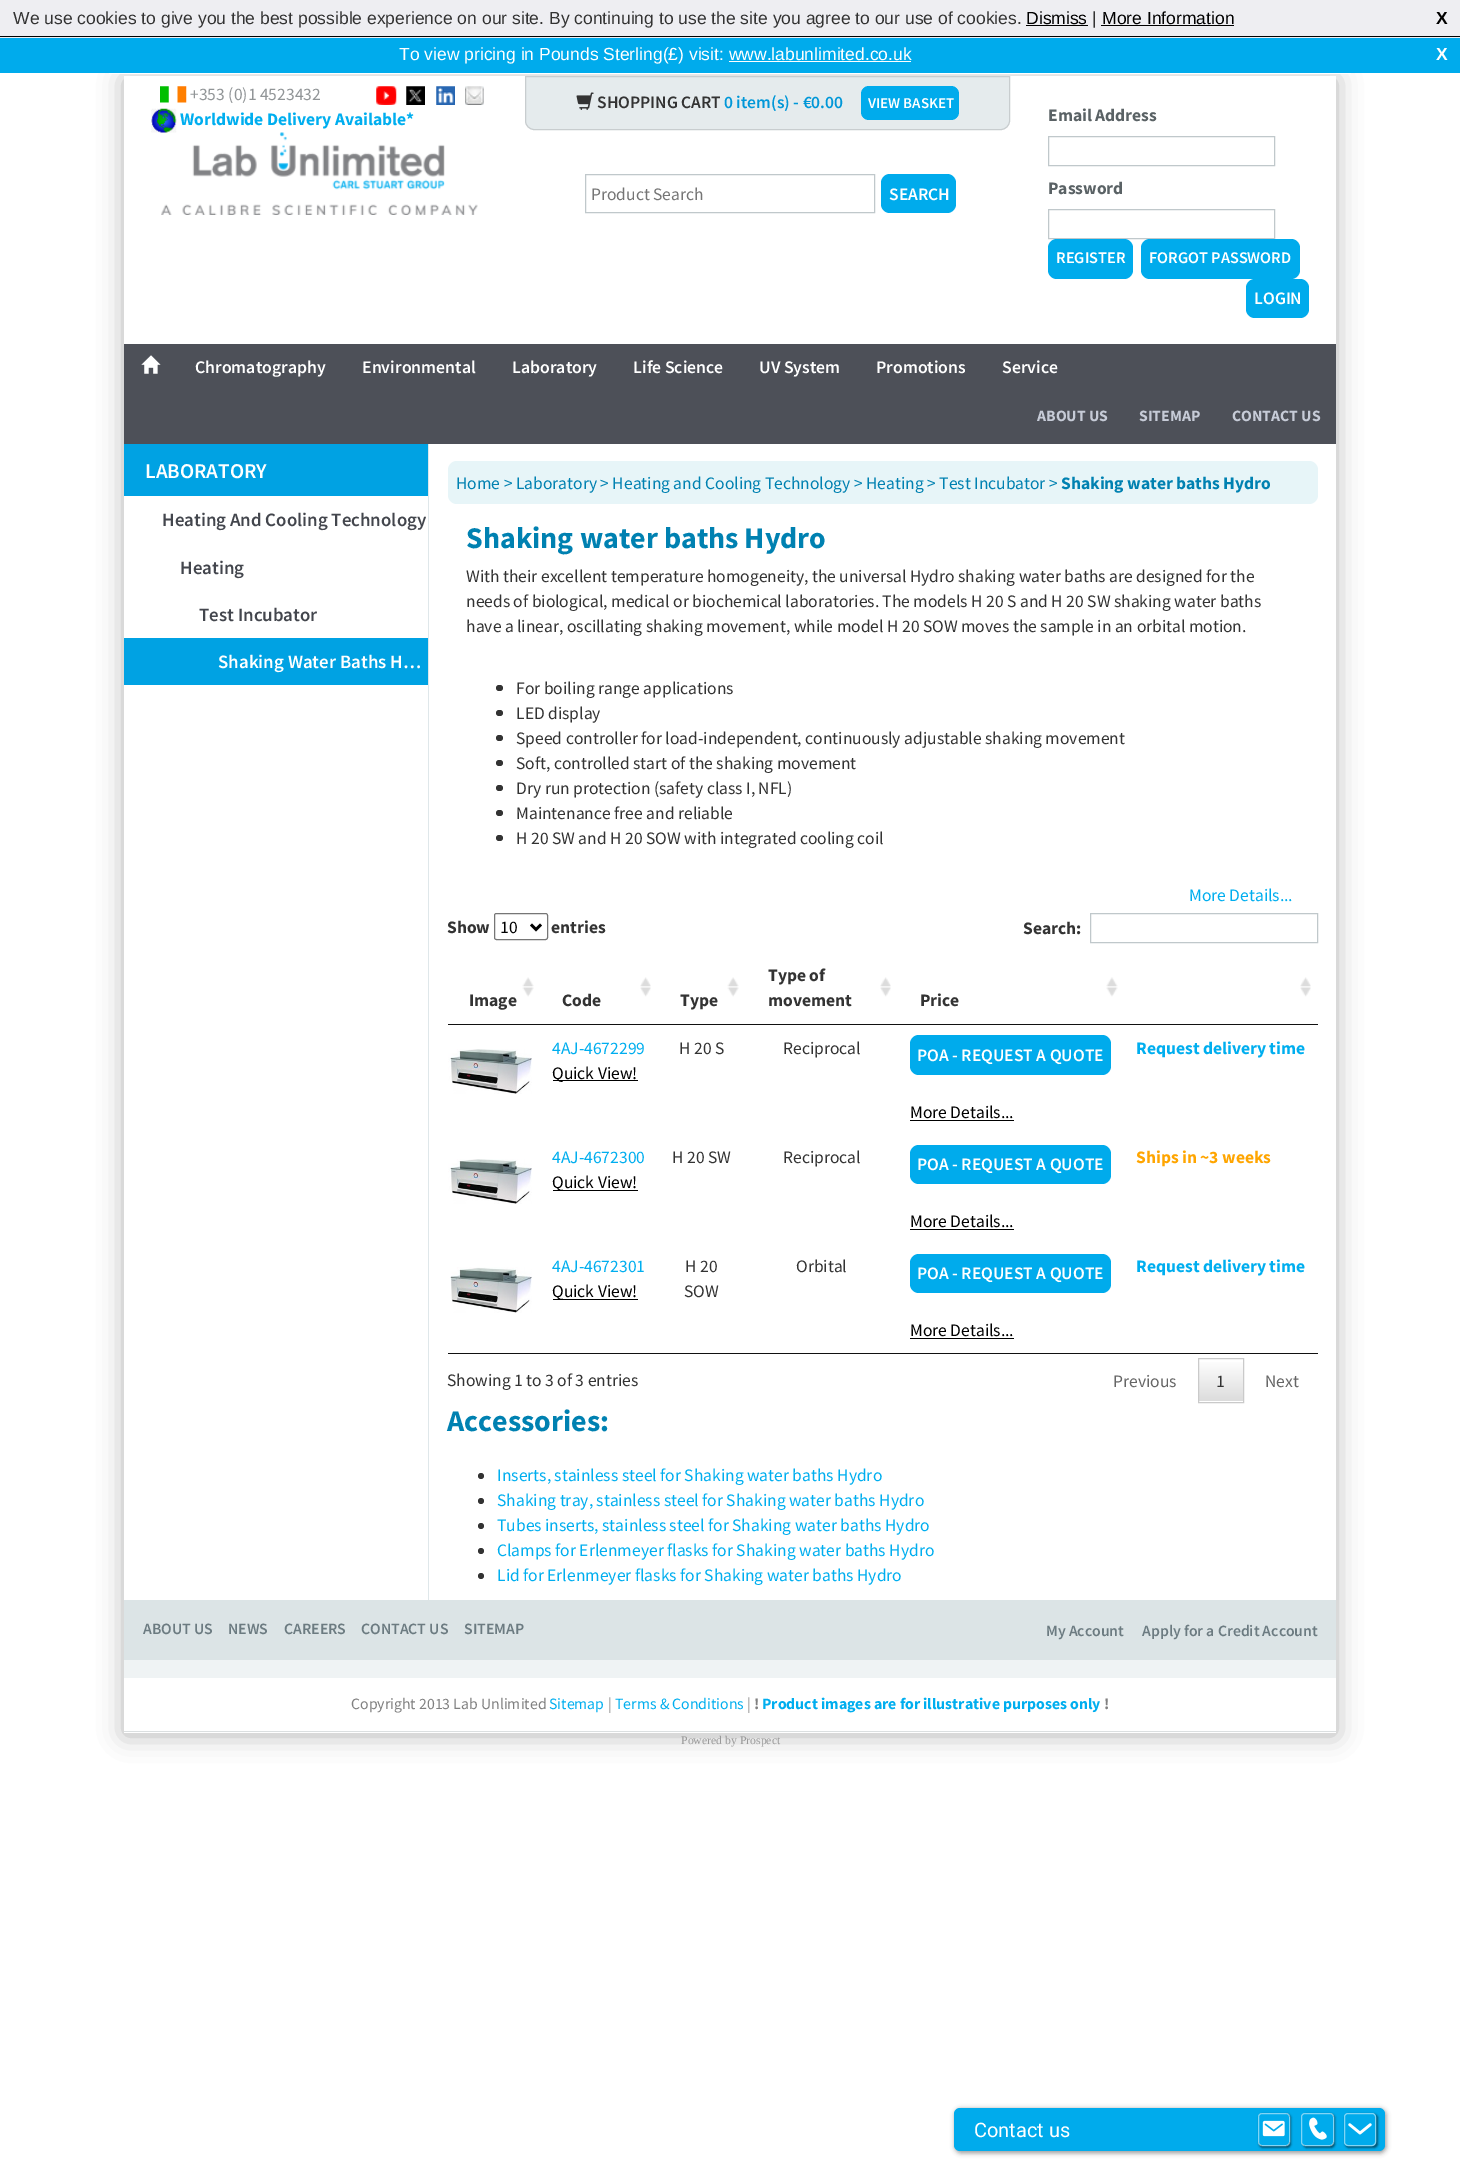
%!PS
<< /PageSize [1460 2163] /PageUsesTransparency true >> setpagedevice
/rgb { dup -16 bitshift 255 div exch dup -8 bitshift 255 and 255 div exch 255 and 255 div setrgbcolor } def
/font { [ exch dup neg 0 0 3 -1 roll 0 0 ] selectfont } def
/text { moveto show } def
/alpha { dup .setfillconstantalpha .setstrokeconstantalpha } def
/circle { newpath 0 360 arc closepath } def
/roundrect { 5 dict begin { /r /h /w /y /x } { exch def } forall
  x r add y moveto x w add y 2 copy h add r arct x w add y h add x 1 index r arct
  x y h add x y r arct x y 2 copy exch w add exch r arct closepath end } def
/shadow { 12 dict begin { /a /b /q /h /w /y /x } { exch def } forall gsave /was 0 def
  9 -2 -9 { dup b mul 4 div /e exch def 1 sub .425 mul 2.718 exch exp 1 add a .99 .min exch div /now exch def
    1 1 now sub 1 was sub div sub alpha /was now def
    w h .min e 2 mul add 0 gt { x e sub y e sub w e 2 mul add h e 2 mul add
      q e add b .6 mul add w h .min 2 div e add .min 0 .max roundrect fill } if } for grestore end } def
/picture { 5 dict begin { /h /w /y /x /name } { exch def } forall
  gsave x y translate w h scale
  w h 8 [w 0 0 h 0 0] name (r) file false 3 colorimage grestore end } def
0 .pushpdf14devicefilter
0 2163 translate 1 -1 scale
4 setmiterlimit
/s1 { /LiberationSans-Regular 17.5 font 16#333333 rgb } def
/s2 { /LiberationSans-Regular 17.5 font 16#000000 rgb } def
/s3 { /LiberationSans-Bold 17.5 font 16#000000 rgb } def
/s4 { /LiberationSans-Regular 17.5 font 16#FFFFFF rgb } def
/s5 { /LiberationSans-Bold 17.5 font 16#FFFFFF rgb } def
/s6 { /SourceSansPro-Regular 17.5 font 16#919597 rgb } def
/s7 { /SourceSansPro-Bold 17.5 font 16#00AEEF rgb } def
/s8 { /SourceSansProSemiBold-SemiBold 17.5 font 16#333333 rgb } def
/s9 { /SourceSansProSemiBold-SemiBold 17.5 font 16#0097D8 rgb } def
/s10 { /SourceSansProSemiBold-SemiBold 15 font 16#FFFFFF rgb } def
/s11 { /SourceSansPro-Regular 17.5 font 16#757575 rgb } def
/s12 { /SourceSansProSemiBold-SemiBold 17.5 font 16#FFFFFF rgb } def
/s13 { /SourceSansPro-Bold 17.5 font 16#5A6265 rgb } def
/s14 { /SourceSansProSemiBold-SemiBold 16.25 font 16#FFFFFF rgb } def
/s15 { /SourceSansProSemiBold-SemiBold 17.75 font 16#FFFFFF rgb } def
/s16 { /SourceSansPro-Bold 15.75 font 16#C6CBD7 rgb } def
/s17 { /SourceSansProSemiBold-SemiBold 21 font 16#FFFFFF rgb } def
/s18 { /SourceSansProSemiBold-SemiBold 18.9 font 16#43464D rgb } def
/s19 { /SourceSansProSemiBold-SemiBold 18.9 font 16#FFFFFF rgb } def
/s20 { /SourceSansPro-Regular 17.5 font 16#0081B1 rgb } def
/s21 { /SourceSansPro-Bold 17.5 font 16#0081B1 rgb } def
/s22 { /SourceSansPro-Bold 30 font 16#0081B1 rgb } def
/s23 { /SourceSansPro-Regular 17.5 font 16#333333 rgb } def
/s24 { /SourceSansPro-Regular 17.5 font 16#00AEEF rgb } def
/s25 { /SourceSansPro-Bold 17.5 font 16#333333 rgb } def
/s26 { /SourceSansPro-Regular 17.5 font 16#000000 rgb } def
/s27 { /SourceSansPro-Bold 17.5 font 16#FFA500 rgb } def
/s28 { /SourceSansPro-Regular 17.5 font 16#666666 rgb } def
/s29 { /SourceSansProSemiBold-SemiBold 15.75 font 16#6C7B81 rgb } def
/s30 { /SourceSansPro-Regular 15.75 font 16#808080 rgb } def
/s31 { /SourceSansPro-Regular 15.75 font 16#00AEEF rgb } def
/s32 { /SourceSansPro-Bold 15.75 font 16#808080 rgb } def
/s33 { /SourceSansPro-Bold 15.75 font 16#00AEEF rgb } def
/s34 { /LiberationSerif-Regular 11.75 font 16#999999 rgb } def
/s35 { /Roboto-Regular 20 font 16#FFFFFF rgb } def
16#FFFFFF rgb
0 0 1460 2163 rectfill
16#EEEEF2 rgb
0 0 1460 38 rectfill
16#000000 rgb
0 36 1460 1 rectfill
s1
(We use cookies to give you the best possible experience on our site. By continuing to use the site you agree to our use of cookies.) 13 24 text
s2
(Dismiss) 1026 24 text
1026 25 62 1 rectfill
s1
(|) 1092 24 text
s2
(More Information) 1102 24 text
1101 25 133 1 rectfill
s3
(X) 1436 24 text
16#7E7E7E rgb
124 79 1212 1656 0 12.5 0.57 shadow
16#00ABEC rgb
0 38 1460 35 rectfill
16#FFFFFF rgb
109 73 1242 1 rectfill
s4
(To view pricing in Pounds Sterling\(£\) visit: www.labunlimited.co.uk) 399 60 text
s5
(X) 1436 60 text
729 61 182 1 rectfill
124 76 1212 1657 rectfill
16#DBDFE0 rgb
124 1731 1212 1 rectfill
(pic1.raw) 160 86 27 17 picture
s6
(+353 \(0\)1 4523432) 190 100 text
(pic2.raw) 376 86 21 19 picture
(pic3.raw) 406 86 19 19 picture
(pic4.raw) 436 86 19 19 picture
(pic5.raw) 465 86 19 19 picture
(pic6.raw) 151 108 26 25 picture
s7
(Worldwide Delivery Available*) 180 125 text
16#E5EBED rgb
525.5 76.5 moveto 1009.5 76.5 lineto 1009.5 121 lineto 1009.5 125.5 1005.5 129.5 1001 129.5 curveto 534 129.5 lineto 529.5 129.5 525.5 125.5 525.5 121 curveto closepath gsave fill grestore
16#C8CDCF rgb
stroke
(pic7.raw) 576 92 18 18 picture
s8
(SHOPPING CART) 597 108 text
s9
(0 item\(s\) - €0.00) 724 108 text
16#00ABEC rgb
861 86 98 34 8 roundrect fill
s10
(VIEW BASKET) 868 108 text
(pic8.raw) 161 132 317 83 picture
16#C0C8CB rgb
585.5 174.5 289 38 rectstroke
s11
(Product Search) 591 200 text
16#00ABEC rgb
881 174 75 39 9 roundrect fill
s12
(SEARCH) 889 200 text
s13
(Email Address) 1048 121 text
16#C0C8CB rgb
1048.5 136.5 226 29 rectstroke
s13
(Password) 1048 194 text
16#C0C8CB rgb
1048.5 209.5 226 29 rectstroke
16#00ABEC rgb
1048 239 85 40 9 roundrect fill
s14
(REGISTER) 1056 263 text
16#00ABEC rgb
1141 239 159 40 9 roundrect fill
s14
(FORGOT PASSWORD) 1149 263 text
16#00ABEC rgb
1246 279 63 39 9 roundrect fill
s12
(LOGIN) 1254 304 text
16#4D5058 rgb
124 344 1212 100 rectfill
(pic9.raw) 141 355 20 19 picture
s15
(Chromatography) 195 373 text
(Environmental) 362 373 text
(Laboratory) 512 373 text
(Life Science) 633 373 text
(UV System) 759 373 text
(Promotions) 876 373 text
(Service) 1002 373 text
s16
(ABOUT US) 1037 421 text
(SITEMAP) 1139 421 text
(CONTACT US) 1232 421 text
16#00A2E3 rgb
124 444 304 241 rectfill
s17
(LABORATORY) 145 478 text
124 496 304 142 rectfill
s18
(Heating And Cooling Technology) 162 526 text
(Heating) 180 574 text
(Test Incubator) 199 621 text
s19
(Shaking Water Baths H…) 218 668 text
16#DFE7EA rgb
428 444 1 1156 rectfill
16#E7F5F8 rgb
448 461 870 43 9 roundrect fill
s20
(Home > Laboratory > Heating and Cooling Technology > Heating > Test Incubator >) 456 489 text
s21
(Shaking water baths Hydro) 1061 489 text
s22
(Shaking water baths Hydro) 466 548 text
s23
(With their excellent temperature homogeneity, the universal Hydro shaking water baths are designed for the) 466 582 text
(needs of biological, medical or biochemical laboratories. The models H 20 S and H 20 SW shaking water baths) 466 607 text
(have a linear, oscillating shaking movement, while model H 20 SOW moves the sample in an orbital motion.) 466 632 text
496 685 7 6 3 roundrect fill
(For boiling range applications) 516 694 text
496 710 7 6 3 roundrect fill
(LED display) 516 719 text
496 735 7 6 3 roundrect fill
(Speed controller for load-independent, continuously adjustable shaking movement) 516 744 text
496 760 7 6 3 roundrect fill
(Soft, controlled start of the shaking movement) 516 769 text
496 785 7 6 3 roundrect fill
(Dry run protection \(safety class I, NFL\)) 516 794 text
496 810 7 6 3 roundrect fill
(Maintenance free and reliable) 516 819 text
496 835 7 6 3 roundrect fill
(H 20 SW and H 20 SOW with integrated cooling coil) 516 844 text
s24
(More Details...) 1189 901 text
s25
(Show) 447 933 text
16#767676 rgb
494.5 913.5 53 26 2 roundrect stroke
16#000000 rgb
2.5 setlinewidth
531 924.5 moveto 536 929.5 lineto 541 924.5 lineto stroke
s26
(10) 500 933 text
s25
(entries) 551 933 text
(Search:) 1023 934 text
16#C0C8CB rgb
1 setlinewidth
1090.5 913.5 227 29 rectstroke
16#111111 rgb
448 1353 870 1 rectfill
(pic10.raw) 880 977 11 20 picture
s25
(Type of) 768 981 text
(movement) 768 1006 text
(pic11.raw) 1300 977 11 20 picture
(pic12.raw) 522 977 12 20 picture
16#111111 rgb
448 1024 870 1 rectfill
s25
(Image) 469 1006 text
(pic11.raw) 640 977 11 20 picture
(Code) 562 1006 text
(pic12.raw) 727 977 12 20 picture
(Type) 680 1006 text
(pic13.raw) 1106 977 12 20 picture
(Price) 920 1006 text
(pic14.raw) 448 1049 84 45 picture
s24
(4AJ-4672299) 552 1054 text
16#000000 rgb
553 1080 85 1 rectfill
(Quick View!) 552 1079 text
s23
(H 20 S) 679 1054 text
(Reciprocal) 783 1054 text
16#00ABEC rgb
910 1035 201 40 9 roundrect fill
s12
(POA - REQUEST A QUOTE) 917 1061 text
s26
(More Details...) 910 1118 text
910 1120 104 1 rectfill
s7
(Request delivery time) 1136 1054 text
(pic14.raw) 448 1159 84 45 picture
s24
(4AJ-4672300) 552 1163 text
16#000000 rgb
553 1190 85 1 rectfill
(Quick View!) 552 1188 text
s23
(H 20 SW) 672 1163 text
(Reciprocal) 783 1163 text
16#00ABEC rgb
910 1145 201 39 9 roundrect fill
s12
(POA - REQUEST A QUOTE) 917 1170 text
s26
(More Details...) 910 1227 text
910 1229 104 1 rectfill
s27
(Ships in ~3 weeks) 1136 1163 text
(pic15.raw) 450 1267 82 46 picture
s24
(4AJ-4672301) 552 1272 text
16#000000 rgb
553 1299 85 1 rectfill
(Quick View!) 552 1297 text
s23
(H 20) 685 1272 text
(SOW) 684 1297 text
(Orbital) 796 1272 text
16#00ABEC rgb
910 1254 201 39 9 roundrect fill
s12
(POA - REQUEST A QUOTE) 917 1279 text
s26
(More Details...) 910 1336 text
910 1338 104 1 rectfill
s7
(Request delivery time) 1136 1272 text
s23
(Showing 1 to 3 of 3 entries) 447 1386 text
s28
(Previous) 1113 1387 text
gsave 1199 1362 moveto 1243 1362 lineto 1243 1401 lineto 1199 1401 lineto closepath clip newpath
<< /ShadingType 2 /ColorSpace /DeviceRGB /Coords [1221 1359 1221 1401] /Extend [true true] /Function << /FunctionType 2 /Domain [0 1] /C0 [1 1 1] /C1 [0.863 0.863 0.863] /N 1 >> >> shfill grestore
16#CACACA rgb
1198.5 1358.5 45 44 rectstroke
s23
(1) 1216 1387 text
s28
(Next) 1265 1387 text
s22
(Accessories:) 447 1431 text
16#333333 rgb
481 1476 3 circle fill
s24
(Inserts, stainless steel for Shaking water baths Hydro) 497 1481 text
16#333333 rgb
481 1501 3 circle fill
s24
(Shaking tray, stainless steel for Shaking water baths Hydro) 497 1506 text
16#333333 rgb
481 1526 3 circle fill
s24
(Tubes inserts, stainless steel for Shaking water baths Hydro) 497 1531 text
16#333333 rgb
481 1551 3 circle fill
s24
(Clamps for Erlenmeyer flasks for Shaking water baths Hydro) 497 1556 text
16#333333 rgb
481 1576 3 circle fill
s24
(Lid for Erlenmeyer flasks for Shaking water baths Hydro) 497 1581 text
16#DCE4E6 rgb
124 1600 1212 60 rectfill
s29
(ABOUT US) 143 1634 text
(NEWS) 228 1634 text
(CAREERS) 284 1634 text
(CONTACT US) 361 1634 text
(SITEMAP) 464 1634 text
(My Account) 1046 1636 text
(Apply for a Credit Account) 1142 1636 text
16#EFF3F4 rgb
124 1660 1212 18 rectfill
s30
(Copyright 2013 Lab Unlimited) 351 1709 text
s31
(Sitemap) 549 1709 text
s30
(|) 608 1709 text
s31
(Terms & Conditions) 615 1709 text
s30
(|) 747 1709 text
s32
(!) 754 1709 text
s33
(Product images are for illustrative purposes only) 762 1709 text
s32
(!) 1104 1709 text
s34
(Powered by Prospect) 681 1744 text
16#000000 rgb
955 2109 431 44 6 2.5 0.4 shadow
16#00ABEC rgb
954 2108 431 43 6 roundrect fill
s35
(Contact us) 974 2137 text
gsave
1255 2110 moveto 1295 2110 lineto 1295 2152 lineto 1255 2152 lineto closepath 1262 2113 moveto 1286 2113 lineto 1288 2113 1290 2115 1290 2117 curveto 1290 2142 lineto 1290 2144 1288 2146 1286 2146 curveto 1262 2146 lineto 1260 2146 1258 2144 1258 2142 curveto 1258 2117 lineto 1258 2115 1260 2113 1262 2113 curveto closepath eoclip newpath
16#000000 rgb
1259 2114 32 34 4 1 0.5 shadow
grestore
0.5 alpha
1258.5 2113.5 31 32 3.5 roundrect stroke
1 alpha
(pic16.raw) 1262 2120 23 17 picture
gsave
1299 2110 moveto 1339 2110 lineto 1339 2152 lineto 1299 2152 lineto closepath 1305 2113 moveto 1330 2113 lineto 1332 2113 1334 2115 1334 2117 curveto 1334 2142 lineto 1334 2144 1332 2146 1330 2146 curveto 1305 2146 lineto 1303 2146 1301 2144 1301 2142 curveto 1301 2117 lineto 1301 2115 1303 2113 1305 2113 curveto closepath eoclip newpath
16#000000 rgb
1303 2114 32 34 4 1 0.5 shadow
grestore
0.5 alpha
1301.5 2113.5 32 32 3.5 roundrect stroke
1 alpha
(pic17.raw) 1309 2117 18 23 picture
gsave
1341 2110 moveto 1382 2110 lineto 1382 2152 lineto 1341 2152 lineto closepath 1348 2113 moveto 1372 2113 lineto 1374 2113 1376 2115 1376 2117 curveto 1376 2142 lineto 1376 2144 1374 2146 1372 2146 curveto 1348 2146 lineto 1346 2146 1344 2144 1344 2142 curveto 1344 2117 lineto 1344 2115 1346 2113 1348 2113 curveto closepath eoclip newpath
16#000000 rgb
1345 2114 33 34 4 1 0.5 shadow
grestore
16#80D5F5 rgb
1344.5 2113.5 31 32 3.5 roundrect stroke
(pic18.raw) 1348 2123 24 12 picture
.poppdf14devicefilter showpage
